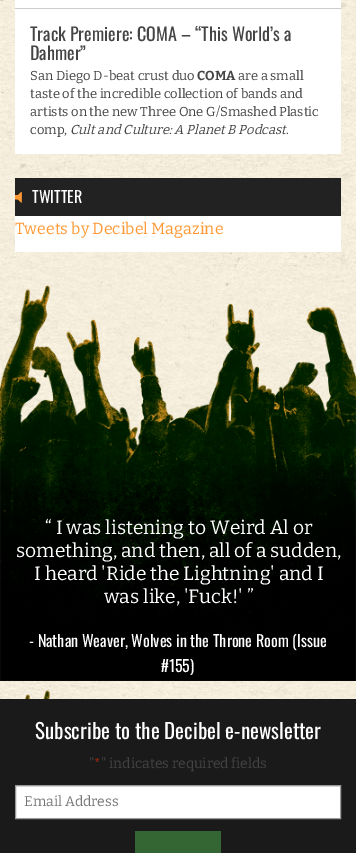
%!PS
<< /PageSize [356 853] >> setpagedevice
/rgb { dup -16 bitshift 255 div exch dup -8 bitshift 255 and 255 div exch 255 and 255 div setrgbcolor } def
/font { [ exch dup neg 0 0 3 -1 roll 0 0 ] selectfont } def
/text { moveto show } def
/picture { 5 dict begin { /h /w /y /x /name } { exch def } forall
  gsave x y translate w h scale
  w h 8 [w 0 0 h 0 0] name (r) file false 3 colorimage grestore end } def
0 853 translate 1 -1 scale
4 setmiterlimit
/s1 { /Oswald-Regular 18 font 16#444444 rgb } def
/s2 { /Bitter-Regular 13 font 16#444444 rgb } def
/s3 { /Bitter-Bold 13 font 16#444444 rgb } def
/s4 { /Bitter-Italic 13 font 16#444444 rgb } def
/s5 { /Oswald-Regular 16 font 16#FFFFFF rgb } def
/s6 { /Bitter-Regular 16 font 16#FF9933 rgb } def
/s7 { /Bitter-Regular 19.25 font 16#FFFFFF rgb } def
/s8 { /Oswald-Regular 21 font 16#FFFFFF rgb } def
/s9 { /Bitter-Regular 14 font 16#444444 rgb } def
/s10 { /Bitter-Regular 13 font 16#C02B0A rgb } def
/s11 { /Bitter-Regular 14 font 16#757575 rgb } def
16#FFFFFF rgb
0 0 356 853 rectfill
(pic1.raw) 0 0 356 699 picture
15 0 326 154 rectfill
16#CCCCCC rgb
15 8 326 1 rectfill
s1
(Track Premiere: COMA – “This World’s a) 30 41 text
(Dahmer”) 30 60 text
s2
(San Diego D-beat crust duo) 30 80 text
s3
(COMA) 197 80 text
s2
(are a small) 238 80 text
(taste of the incredible collection of bands and) 30 98 text
(artists on the new Three One G/Smashed Plastic) 30 116 text
(comp,) 30 134 text
s4
(Cult and Culture: A Planet B Podcast) 70 134 text
s2
(.) 286 134 text
16#FFFFFF rgb
15 216 326 36 rectfill
16#222222 rgb
15 178 326 38 rectfill
(pic2.raw) 15 191 7 12 picture
s5
(TWITTER) 32 203 text
s6
(Tweets by Decibel Magazine) 15 234 text
(pic3.raw) 0 285 356 414 picture
s7
(“ I was listening to Weird Al or) 45 534 text
(something, and then, all of a sudden,) 16 557 text
(I heard 'Ride the Lightning' and I) 34 580 text
(was like, 'Fuck!' ”) 104 603 text
s5
(- Nathan Weaver, Wolves in the Throne Room \(Issue) 29 647 text
(#155\)) 161 672 text
16#1A1A1A rgb
0 699 356 154 rectfill
s8
(Subscribe to the Decibel e-newsletter) 35 739 text
s9
(") 89 768 text
s10
(*) 94 768 text
s9
(" indicates required fields) 101 768 text
16#FFFFFF rgb
16 787 324 31 rectfill
16#ECECEC rgb
16 786 324 1 rectfill
16#999999 rgb
15.5 785.5 325 33 rectstroke
s11
(Email Address) 24 806 text
16#336633 rgb
135 831 86 22 rectfill
showpage
